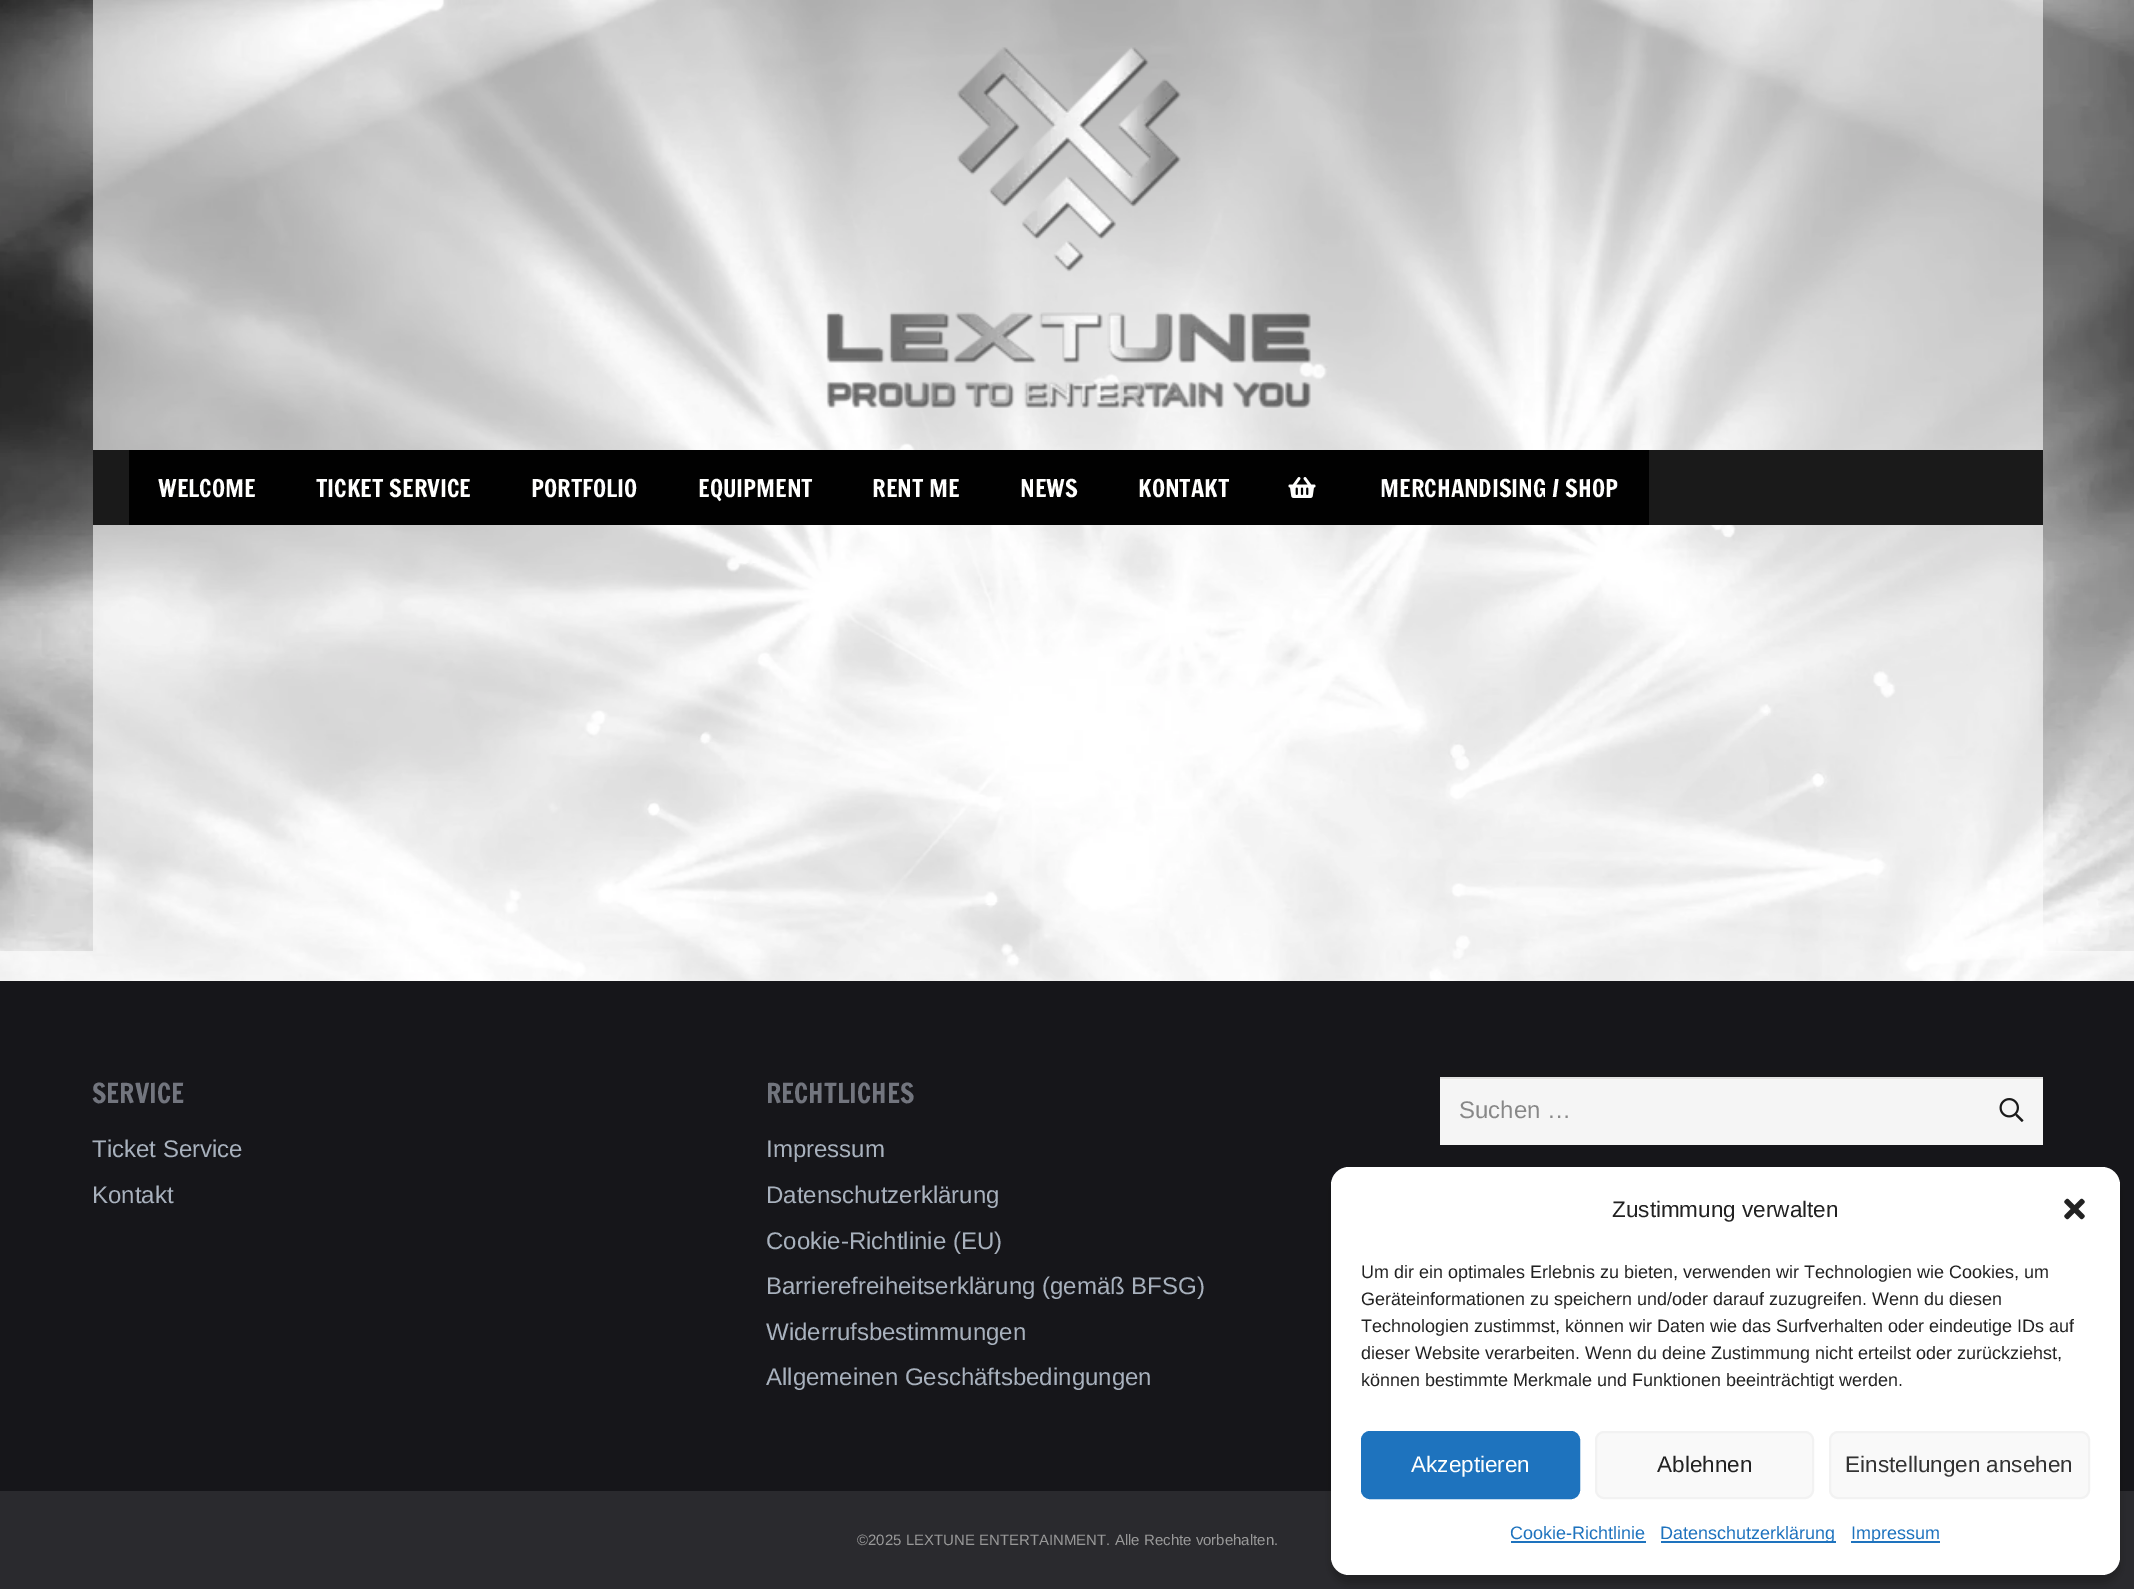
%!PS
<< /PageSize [2134 1589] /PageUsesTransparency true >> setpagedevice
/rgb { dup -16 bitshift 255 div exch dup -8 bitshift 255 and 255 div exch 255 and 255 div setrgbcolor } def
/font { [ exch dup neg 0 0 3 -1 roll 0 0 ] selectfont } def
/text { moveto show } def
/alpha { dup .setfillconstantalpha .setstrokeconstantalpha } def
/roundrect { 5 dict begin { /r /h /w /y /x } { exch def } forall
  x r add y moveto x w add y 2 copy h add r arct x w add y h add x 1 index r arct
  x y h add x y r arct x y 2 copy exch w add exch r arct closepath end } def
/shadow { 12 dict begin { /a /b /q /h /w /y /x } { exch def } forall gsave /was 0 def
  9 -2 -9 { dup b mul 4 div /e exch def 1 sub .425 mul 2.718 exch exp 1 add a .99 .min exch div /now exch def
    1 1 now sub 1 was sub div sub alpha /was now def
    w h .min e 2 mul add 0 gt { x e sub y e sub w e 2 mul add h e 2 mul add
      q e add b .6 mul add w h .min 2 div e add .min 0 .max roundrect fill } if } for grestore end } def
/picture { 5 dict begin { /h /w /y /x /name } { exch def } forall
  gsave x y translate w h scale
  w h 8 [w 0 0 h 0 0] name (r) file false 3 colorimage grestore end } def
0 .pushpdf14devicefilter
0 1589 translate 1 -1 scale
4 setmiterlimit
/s1 { /FrancoisOne-Regular 24 font 16#FFFFFE rgb } def
/s2 { /FrancoisOne-Regular 27 font 16#72757E rgb } def
/s3 { /LiberationSans-Regular 24 font 16#A8B1BD rgb } def
/s4 { /LiberationSans-Regular 24 font 16#888888 rgb } def
/s5 { /LiberationSans-Regular 15 font 16#999999 rgb } def
/s6 { /LiberationSans-Regular 22.5 font 16#222222 rgb } def
/s7 { /LiberationSans-Regular 18 font 16#222222 rgb } def
/s8 { /LiberationSans-Regular 22.5 font 16#FFFFFE rgb } def
/s9 { /LiberationSans-Regular 22.5 font 16#333333 rgb } def
/s10 { /LiberationSans-Regular 18 font 16#1E73BE rgb } def
16#FFFFFF rgb
0 0 2134 1589 rectfill
(pic1.raw) 0 0 2134 981 picture
0.6 alpha
93 0 1950 951 rectfill
1 alpha
(pic2.raw) 826 47 485 361 picture
16#1A1A1A rgb
93 450 1950 75 rectfill
16#010101 rgb
129 450 1520 75 rectfill
s1
(WELCOME) 158 497 text
(TICKET SERVICE) 316 497 text
(PORTFOLIO) 531 497 text
(EQUIPMENT) 698 497 text
(RENT ME) 872 497 text
(NEWS) 1020 497 text
(KONTAKT) 1138 497 text
(pic3.raw) 1288 477 28 21 picture
(MERCHANDISING / SHOP) 1380 497 text
0.6 alpha
16#FFFFFF rgb
0 951 2134 30 rectfill
1 alpha
16#16161A rgb
0 981 2134 510 rectfill
s2
(SERVICE) 92 1103 text
s3
(Ticket Service) 92 1157 text
(Kontakt) 92 1203 text
s2
(RECHTLICHES) 766 1103 text
s3
(Impressum) 766 1157 text
(Datenschutzerklärung) 766 1203 text
(Cookie-Richtlinie \(EU\)) 766 1249 text
(Barrierefreiheitserklärung \(gemäß BFSG\)) 766 1294 text
(Widerrufsbestimmungen) 766 1340 text
(Allgemeinen Geschäftsbedingungen) 766 1385 text
16#F5F5F5 rgb
1440 1079 603 66 rectfill
16#E1E1E1 rgb
1440 1077 603 2 rectfill
s4
(Suchen …) 1459 1118 text
(pic4.raw) 1999 1098 25 24 picture
16#2A2A2E rgb
0 1491 2134 98 rectfill
s5
(©2025 LEXTUNE ENTERTAINMENT. Alle Rechte vorbehalten.) 857 1545 text
16#000000 rgb
1331 1176 789 408 18 4.5 0.23 shadow
16#FFFFFF rgb
1331 1167 789 408 18 roundrect fill
s6
(Zustimmung verwalten) 1612 1217 text
(pic5.raw) 2064 1198 21 22 picture
s7
(Um dir ein optimales Erlebnis zu bieten, verwenden wir Technologien wie Cookies, um) 1361 1278 text
(Geräteinformationen zu speichern und/oder darauf zuzugreifen. Wenn du diesen) 1361 1305 text
(Technologien zustimmst, können wir Daten wie das Surfverhalten oder eindeutige IDs auf) 1361 1332 text
(dieser Website verarbeiten. Wenn du deine Zustimmung nicht erteilst oder zurückziehst,) 1361 1359 text
(können bestimmte Merkmale und Funktionen beeinträchtigt werden.) 1361 1386 text
16#1E73BE rgb
1362 1432 217 66 8 roundrect gsave fill grestore
2 setlinewidth
stroke
s8
(Akzeptieren) 1411 1472 text
16#F9F9F9 rgb
1596 1432 217 66 8 roundrect gsave fill grestore
16#F2F2F2 rgb
stroke
s6
(Ablehnen) 1657 1472 text
16#F9F9F9 rgb
1830 1432 259 66 8 roundrect gsave fill grestore
16#F2F2F2 rgb
stroke
s9
(Einstellungen ansehen) 1845 1472 text
s10
(Cookie-Richtlinie) 1510 1539 text
1511 1541 135 2 rectfill
1661 1541 175 2 rectfill
(Datenschutzerklärung) 1660 1539 text
1851 1541 89 2 rectfill
(Impressum) 1851 1539 text
.poppdf14devicefilter showpage
